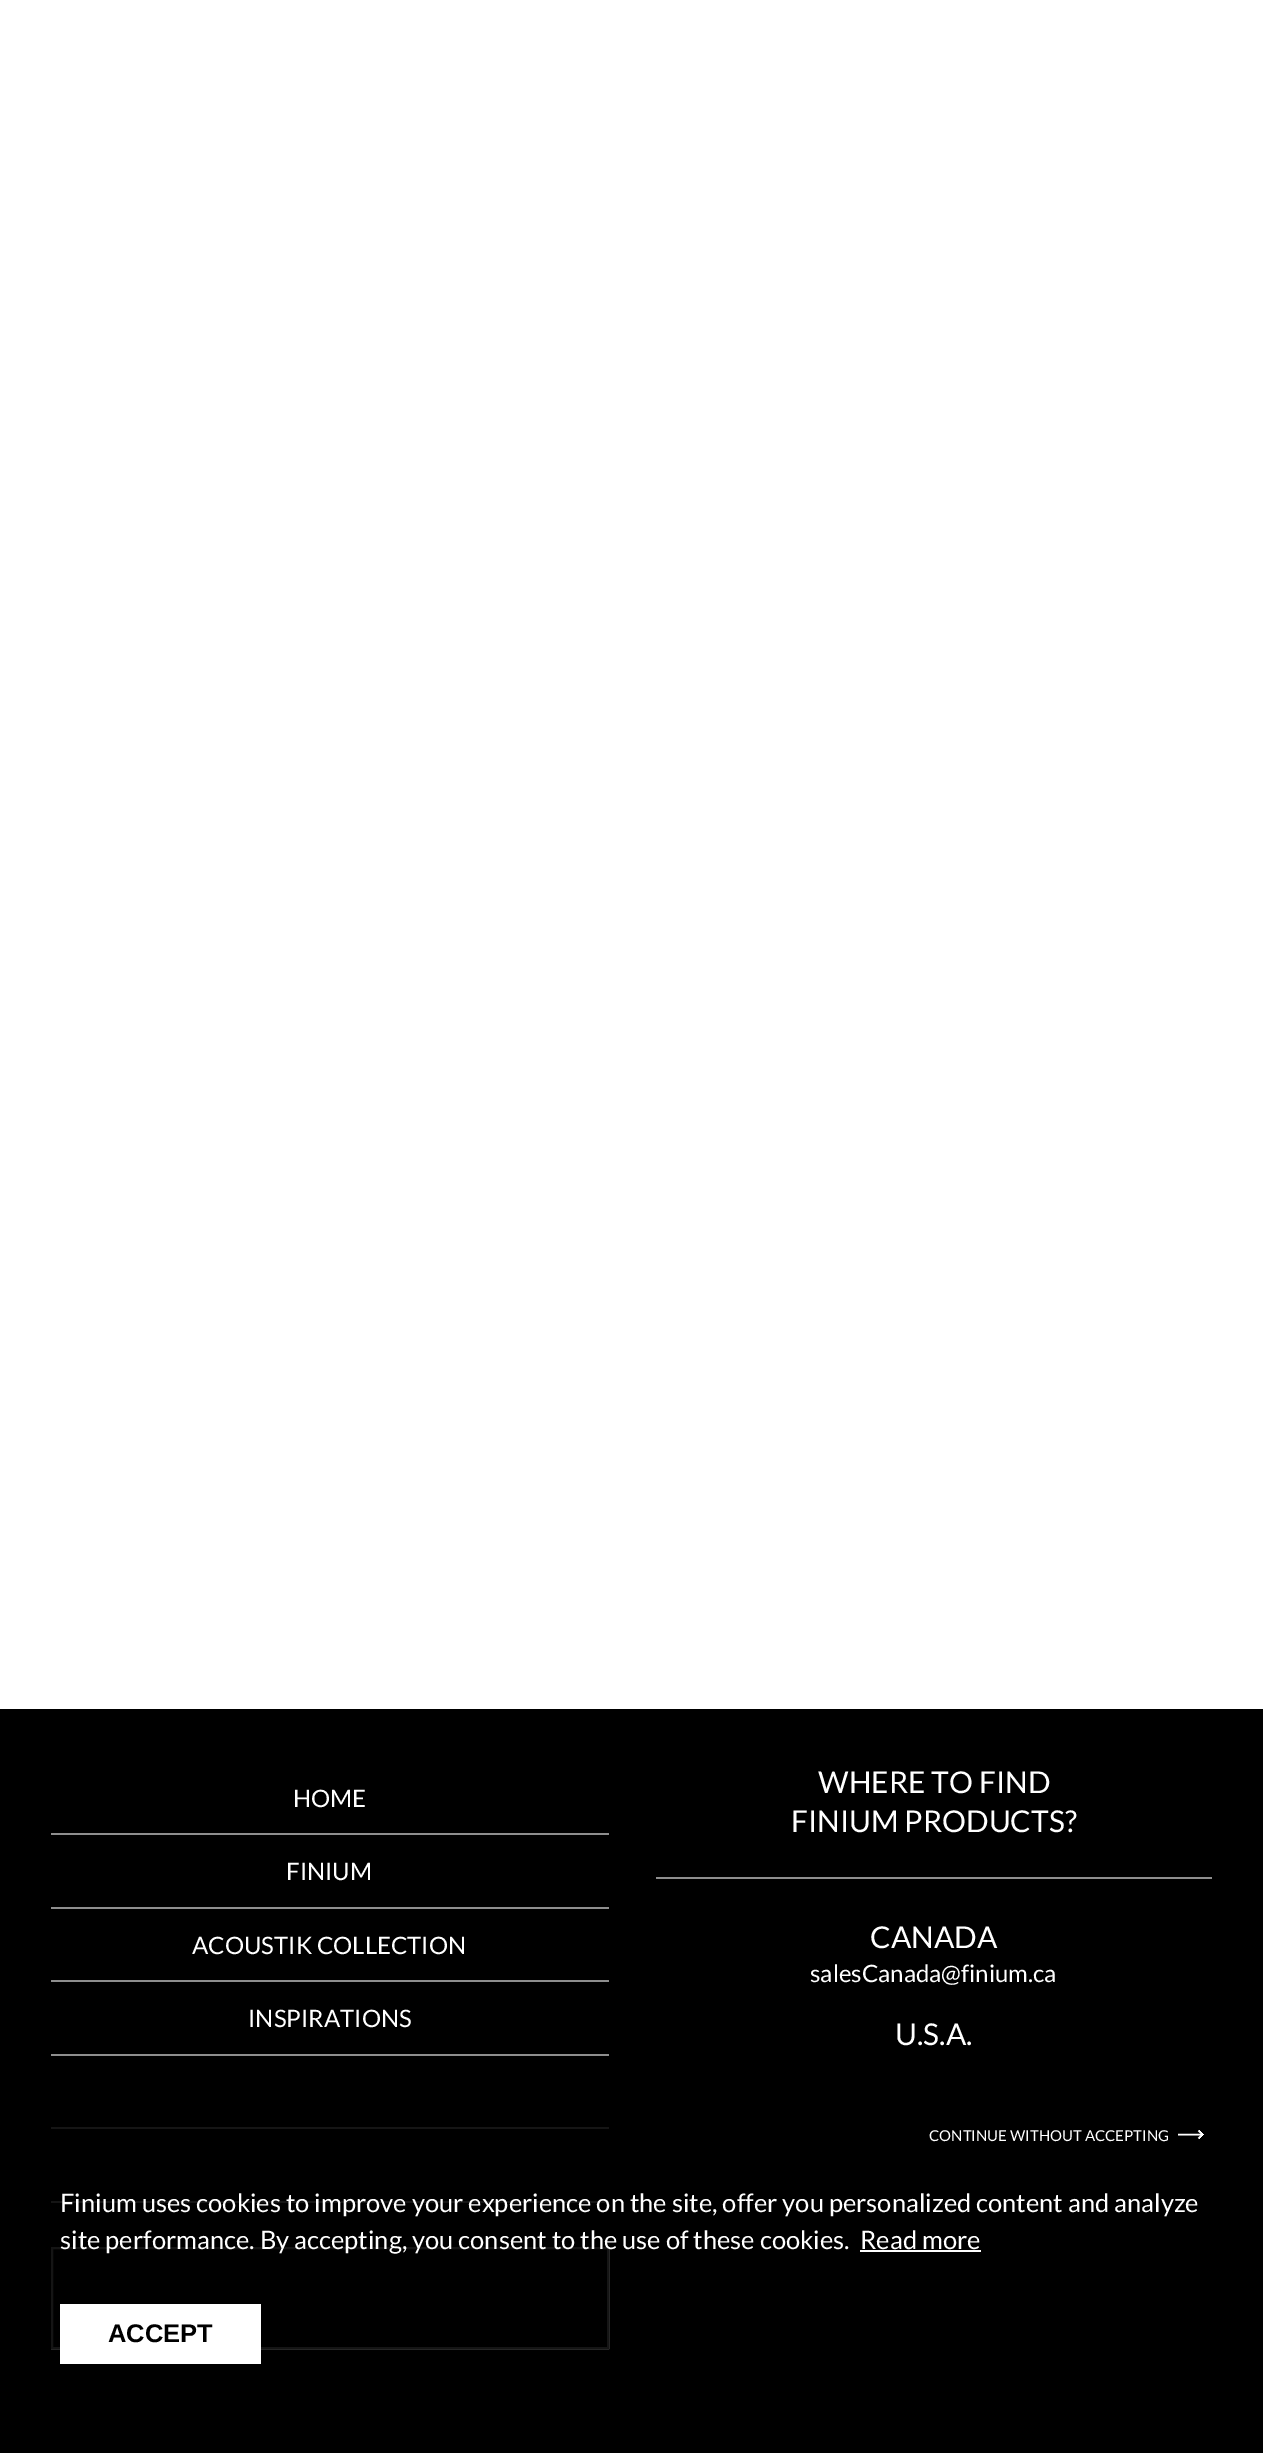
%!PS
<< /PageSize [1263 2453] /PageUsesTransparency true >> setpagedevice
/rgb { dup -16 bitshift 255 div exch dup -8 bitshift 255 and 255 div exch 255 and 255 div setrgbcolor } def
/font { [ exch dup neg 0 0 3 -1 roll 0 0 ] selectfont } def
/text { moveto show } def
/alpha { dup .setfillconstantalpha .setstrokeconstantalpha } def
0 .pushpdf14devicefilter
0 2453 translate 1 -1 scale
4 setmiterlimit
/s1 { /Lato-Regular 24 font 16#FFFFFF rgb } def
/s2 { /Lato-Regular 30 font 16#FFFFFF rgb } def
/s3 { /Lato-Regular 15 font 16#FFFFFF rgb } def
/s4 { /Lato-Regular 25.5 font 16#FFFFFF rgb } def
/s5 { /LiberationSans-Bold 25.5 font 16#000000 rgb } def
16#FFFFFF rgb
0 0 1263 2453 rectfill
16#000000 rgb
0 1709 1263 744 rectfill
16#8E8E8E rgb
51 2201 558 2 rectfill
s1
(HOME) 293 1807 text
16#8E8E8E rgb
51 1833 558 2 rectfill
s1
(FINIUM) 286 1880 text
16#8E8E8E rgb
51 1907 558 2 rectfill
s1
(ACOUSTIK COLLECTION) 192 1954 text
16#8E8E8E rgb
51 1980 558 2 rectfill
s1
(INSPIRATIONS) 248 2027 text
16#8E8E8E rgb
51 2054 558 2 rectfill
51 2127 558 2 rectfill
2 setlinewidth
52 2248 556 100 rectstroke
s2
(WHERE TO FIND) 818 1793 text
(FINIUM PRODUCTS?) 791 1832 text
16#8E8E8E rgb
656 1877 556 2 rectfill
s2
(CANADA) 870 1948 text
s1
(salesCanada@finium.ca) 810 1982 text
s2
(U.S.A.) 895 2045 text
0.85 alpha
16#000000 rgb
51 2127 558 222 rectfill
1 alpha
s3
(CONTINUE WITHOUT ACCEPTING) 929 2141 text
gsave
1178 2130 25 9 rectclip
1.5 setlinewidth
1177.5 2134.5 moveto 1202 2134.5 lineto stroke
grestore
gsave
1203.5 2134.5 moveto 1199 2139 lineto 1194.5 2134.5 lineto 1199 2130 lineto closepath clip newpath
3 setlinewidth
1199 2130 moveto 1203.5 2134.5 lineto 1199 2139 lineto stroke
grestore
s4
(Finium uses cookies to improve your experience on the site, offer you personalized content and analyze) 60 2212 text
(site performance. By accepting, you consent to the use of these cookies.) 60 2249 text
(Read more) 860 2249 text
860 2250 121 2 rectfill
60 2304 201 60 rectfill
s5
(ACCEPT) 108 2342 text
.poppdf14devicefilter showpage
